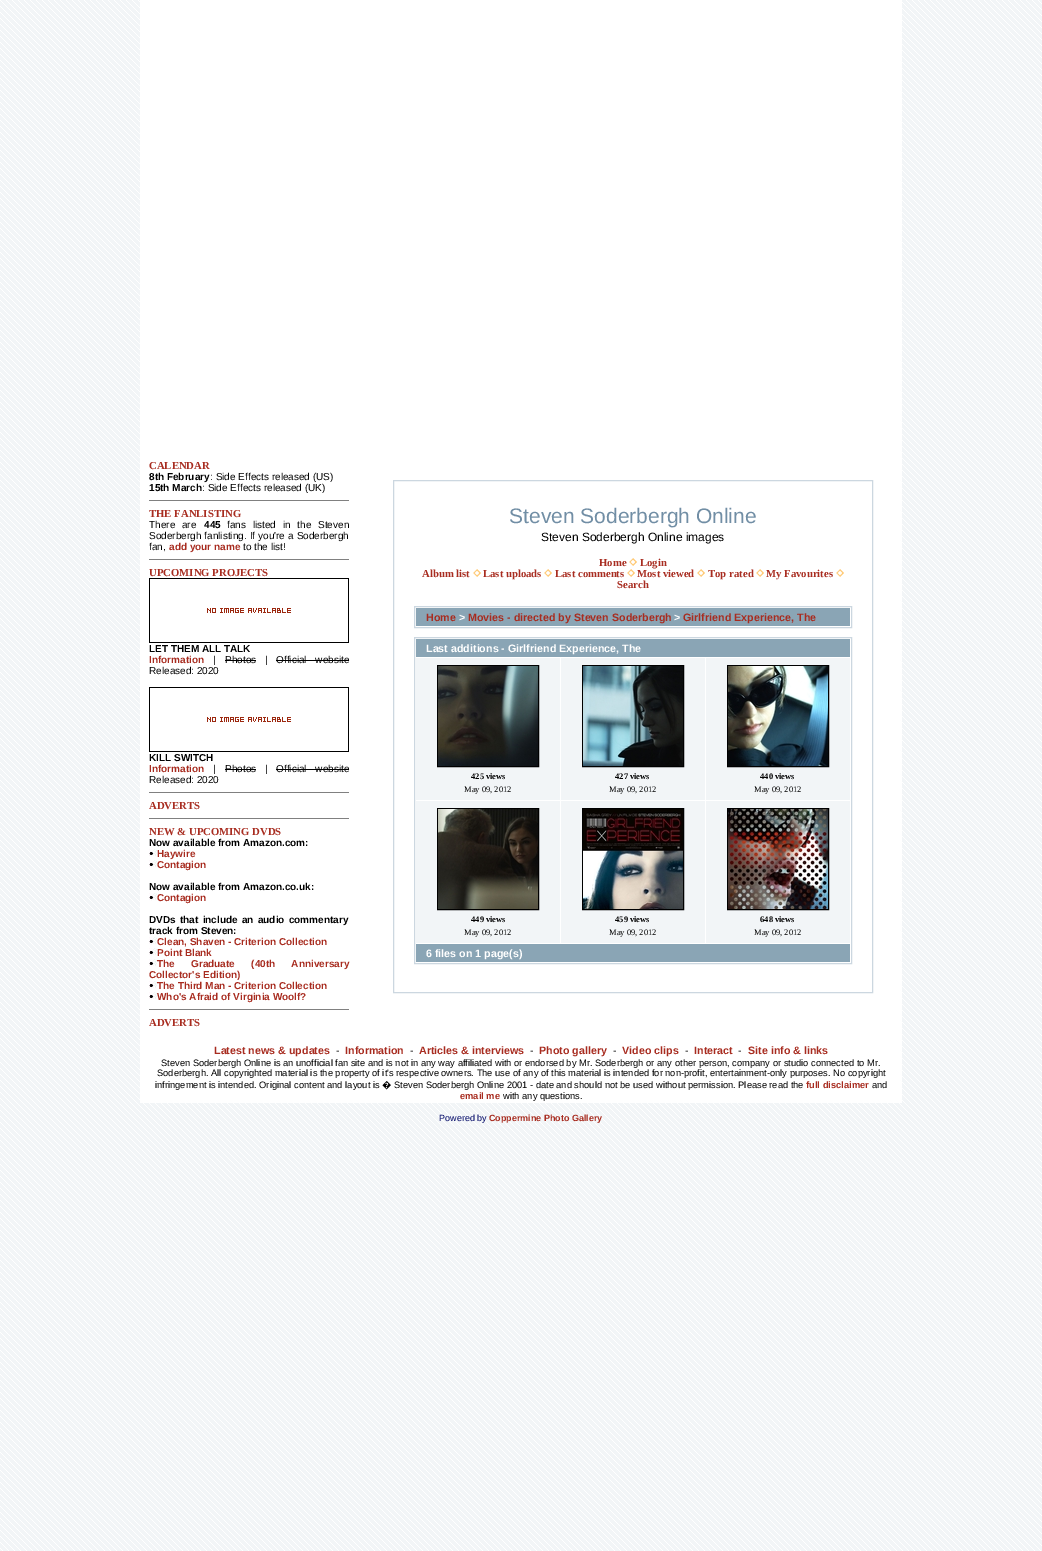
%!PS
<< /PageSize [1042 1551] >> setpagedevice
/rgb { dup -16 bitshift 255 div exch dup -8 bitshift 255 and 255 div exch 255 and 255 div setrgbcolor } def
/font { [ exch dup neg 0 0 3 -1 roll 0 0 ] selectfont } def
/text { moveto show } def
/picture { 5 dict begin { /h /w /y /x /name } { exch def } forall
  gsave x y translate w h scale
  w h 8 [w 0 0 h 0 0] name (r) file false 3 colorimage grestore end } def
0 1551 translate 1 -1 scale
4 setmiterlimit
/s1 { /LiberationSerif-Bold 10.7 font 16#A82C20 rgb } def
/s2 { /LiberationSans-Bold 10 font 16#000000 rgb } def
/s3 { /LiberationSans-Regular 10 font 16#000000 rgb } def
/s4 { /LiberationSans-Bold 10 font 16#A82C20 rgb } def
/s5 { /LiberationSans-Regular 21 font 16#718EA5 rgb } def
/s6 { /LiberationSans-Regular 12 font 16#000000 rgb } def
/s7 { /LiberationSans-Bold 10.7 font 16#A82C20 rgb } def
/s8 { /LiberationSans-Bold 10.7 font 16#FFFFFF rgb } def
/s9 { /LiberationSerif-Bold 8.5 font 16#000000 rgb } def
/s10 { /LiberationSerif-Regular 8.5 font 16#000000 rgb } def
/s11 { /LiberationSans-Regular 10.7 font 16#000000 rgb } def
/s12 { /LiberationSans-Regular 9.33 font 16#000000 rgb } def
/s13 { /NotoSans-Regular 9.33 font 16#000000 rgb } def
/s14 { /LiberationSans-Bold 9.33 font 16#A82C20 rgb } def
/s15 { /LiberationSans-Regular 9 font 16#000666 rgb } def
/s16 { /LiberationSans-Bold 9 font 16#A82C20 rgb } def
16#F2F5F7 rgb
0 0 1042 1551 rectfill
(pic1.raw) 0 0 1042 1551 picture
16#FFFFFF rgb
140 0 762 458 rectfill
140 458 9 645 rectfill
149 458 744 645 rectfill
s1
(CALENDAR) 149 469 text
s2
(8th February) 149 480 text
s3
(: Side Effects released \(US\)) 210 480 text
s2
(15th March) 149 491 text
s3
(: Side Effects released \(UK\)) 202 491 text
16#808080 rgb
149 500 200 1 rectfill
s1
(THE FANLISTING) 149 517 text
/LiberationSans-Regular 10 font
16#000000 rgb
149 528 moveto 4 0 32 (There are) widthshow
s2
(445) 204 528 text
/LiberationSans-Regular 10 font
227 528 moveto 4 0 32 (fans listed in the Steven) widthshow
149 539 moveto 0.25 0 32 (Soderbergh fanlisting. If you're a Soderbergh) widthshow
(fan,) 149 550 text
s4
(add your name) 169 550 text
s3
(to the list!) 243 550 text
16#808080 rgb
149 559 200 1 rectfill
s1
(UPCOMING PROJECTS) 149 576 text
(pic2.raw) 149 578 200 65 picture
s2
(LET THEM ALL TALK) 149 652 text
s4
(Information) 149 663 text
s3
(|) 213 663 text
(Photos) 225 663 text
225 660 31 1 rectfill
(|) 265 663 text
276 663 moveto 6 0 32 (Official website) widthshow
276 660 73 1 rectfill
(Released: 2020) 149 674 text
(pic2.raw) 149 687 200 65 picture
s2
(KILL SWITCH) 149 761 text
s4
(Information) 149 772 text
s3
(|) 213 772 text
(Photos) 225 772 text
225 769 31 1 rectfill
(|) 265 772 text
276 772 moveto 6 0 32 (Official website) widthshow
276 769 73 1 rectfill
(Released: 2020) 149 783 text
16#808080 rgb
149 792 200 1 rectfill
s1
(ADVERTS) 149 809 text
16#808080 rgb
149 818 200 1 rectfill
s1
(NEW & UPCOMING DVDS) 149 835 text
s2
(Now available from Amazon.com:) 149 846 text
(pic3.raw) 149 849 8 8 picture
s4
(Haywire) 157 857 text
(pic3.raw) 149 860 8 8 picture
(Contagion) 157 868 text
s2
(Now available from Amazon.co.uk:) 149 890 text
(pic3.raw) 149 893 8 8 picture
s4
(Contagion) 157 901 text
16#000000 rgb
149 923 moveto 1.5 0 32 (DVDs that include an audio commentary) widthshow
(track from Steven:) 149 934 text
(pic3.raw) 149 937 8 8 picture
s4
(Clean, Shaven - Criterion Collection) 157 945 text
(pic3.raw) 149 948 8 8 picture
(Point Blank) 157 956 text
(pic3.raw) 149 959 8 8 picture
157 967 moveto 13.5 0 32 (The Graduate \(40th Anniversary) widthshow
(Collector's Edition\)) 149 978 text
(pic3.raw) 149 981 8 8 picture
(The Third Man - Criterion Collection) 157 989 text
(pic3.raw) 149 992 8 8 picture
(Who's Afraid of Virginia Woolf?) 157 1000 text
16#808080 rgb
149 1009 200 1 rectfill
s1
(ADVERTS) 149 1026 text
16#CCD7E0 rgb
393.5 480.5 479 512 rectstroke
s5
(Steven Soderbergh Online) 509 523 text
s6
(Steven Soderbergh Online images) 541 541 text
s1
(Home) 599 566 text
(pic4.raw) 629 558 8 8 picture
(Login) 640 566 text
(Album list) 422 577 text
(pic4.raw) 473 569 8 8 picture
(Last uploads) 483 577 text
(pic4.raw) 544 569 8 8 picture
(Last comments) 555 577 text
(pic4.raw) 627 569 8 8 picture
(Most viewed) 637 577 text
(pic4.raw) 697 569 8 8 picture
(Top rated) 708 577 text
(pic4.raw) 756 569 8 8 picture
(My Favourites) 766 577 text
(pic4.raw) 836 569 8 8 picture
(Search) 617 588 text
16#CCD7E0 rgb
414.5 606.5 437 21 rectstroke
16#8AA5B5 rgb
416 608 434 18 rectfill
s7
(Home) 426 621 text
s8
(>) 459 621 text
s7
(Movies - directed by Steven Soderbergh) 468 621 text
s8
(>) 674 621 text
s7
(Girlfriend Experience, The) 683 621 text
16#CCD7E0 rgb
414.5 637.5 437 326 rectstroke
16#8AA5B5 rgb
416 639 434 18 rectfill
s8
(Last additions - Girlfriend Experience, The) 426 652 text
16#F2F5F7 rgb
416 658 144 142 rectfill
16#000000 rgb
437.5 665.5 101 101 rectstroke
(pic5.raw) 438 666 100 100 picture
s9
(425 views) 471 779 text
s10
(May 09, 2012) 464 792 text
16#F2F5F7 rgb
561 658 144 142 rectfill
16#000000 rgb
582.5 665.5 101 101 rectstroke
(pic6.raw) 583 666 100 100 picture
s9
(427 views) 615 779 text
s10
(May 09, 2012) 609 792 text
16#F2F5F7 rgb
706 658 144 142 rectfill
16#000000 rgb
727.5 665.5 101 101 rectstroke
(pic7.raw) 728 666 100 100 picture
s9
(440 views) 760 779 text
s10
(May 09, 2012) 754 792 text
16#F2F5F7 rgb
416 801 144 142 rectfill
16#000000 rgb
437.5 808.5 101 101 rectstroke
(pic8.raw) 438 809 100 100 picture
s9
(449 views) 471 922 text
s10
(May 09, 2012) 464 935 text
16#F2F5F7 rgb
561 801 144 142 rectfill
16#000000 rgb
582.5 808.5 101 101 rectstroke
(pic9.raw) 583 809 100 100 picture
s9
(459 views) 615 922 text
s10
(May 09, 2012) 609 935 text
16#F2F5F7 rgb
706 801 144 142 rectfill
16#000000 rgb
727.5 808.5 101 101 rectstroke
(pic10.raw) 728 809 100 100 picture
s9
(648 views) 760 922 text
s10
(May 09, 2012) 754 935 text
16#8AA5B5 rgb
416 944 434 18 rectfill
s8
(6 files on 1 page\(s\)) 426 957 text
893 458 9 645 rectfill
s7
(Latest news & updates) 214 1054 text
s11
(-) 336 1054 text
s7
(Information) 345 1054 text
s11
(-) 410 1054 text
s7
(Articles & interviews) 419 1054 text
s11
(-) 530 1054 text
s7
(Photo gallery) 539 1054 text
s11
(-) 613 1054 text
s7
(Video clips) 622 1054 text
s11
(-) 685 1054 text
s7
(Interact) 694 1054 text
s11
(-) 738 1054 text
s7
(Site info & links) 748 1054 text
s12
(Steven Soderbergh Online is an unofficial fan site and is not in any way affiliated with or endorsed by Mr. Soderbergh or any other person, company or studio connected to Mr.) 161 1066 text
(Soderbergh. All copyrighted material is the property of it's respective owners. The use of any of this material is intended for non-profit, entertainment-only purposes. No copyright) 157 1076 text
(infringement is intended. Original content and layout is) 155 1088 text
s13
(�) 382 1088 text
s12
(Steven Soderbergh Online 2001 - date and should not be used without permission. Please read the) 394 1088 text
s14
(full disclaimer) 806 1088 text
s12
(and) 872 1088 text
s14
(email me) 460 1099 text
s12
(with any questions.) 503 1099 text
s15
(Powered by) 439 1121 text
s16
(Coppermine Photo Gallery) 489 1121 text
showpage
